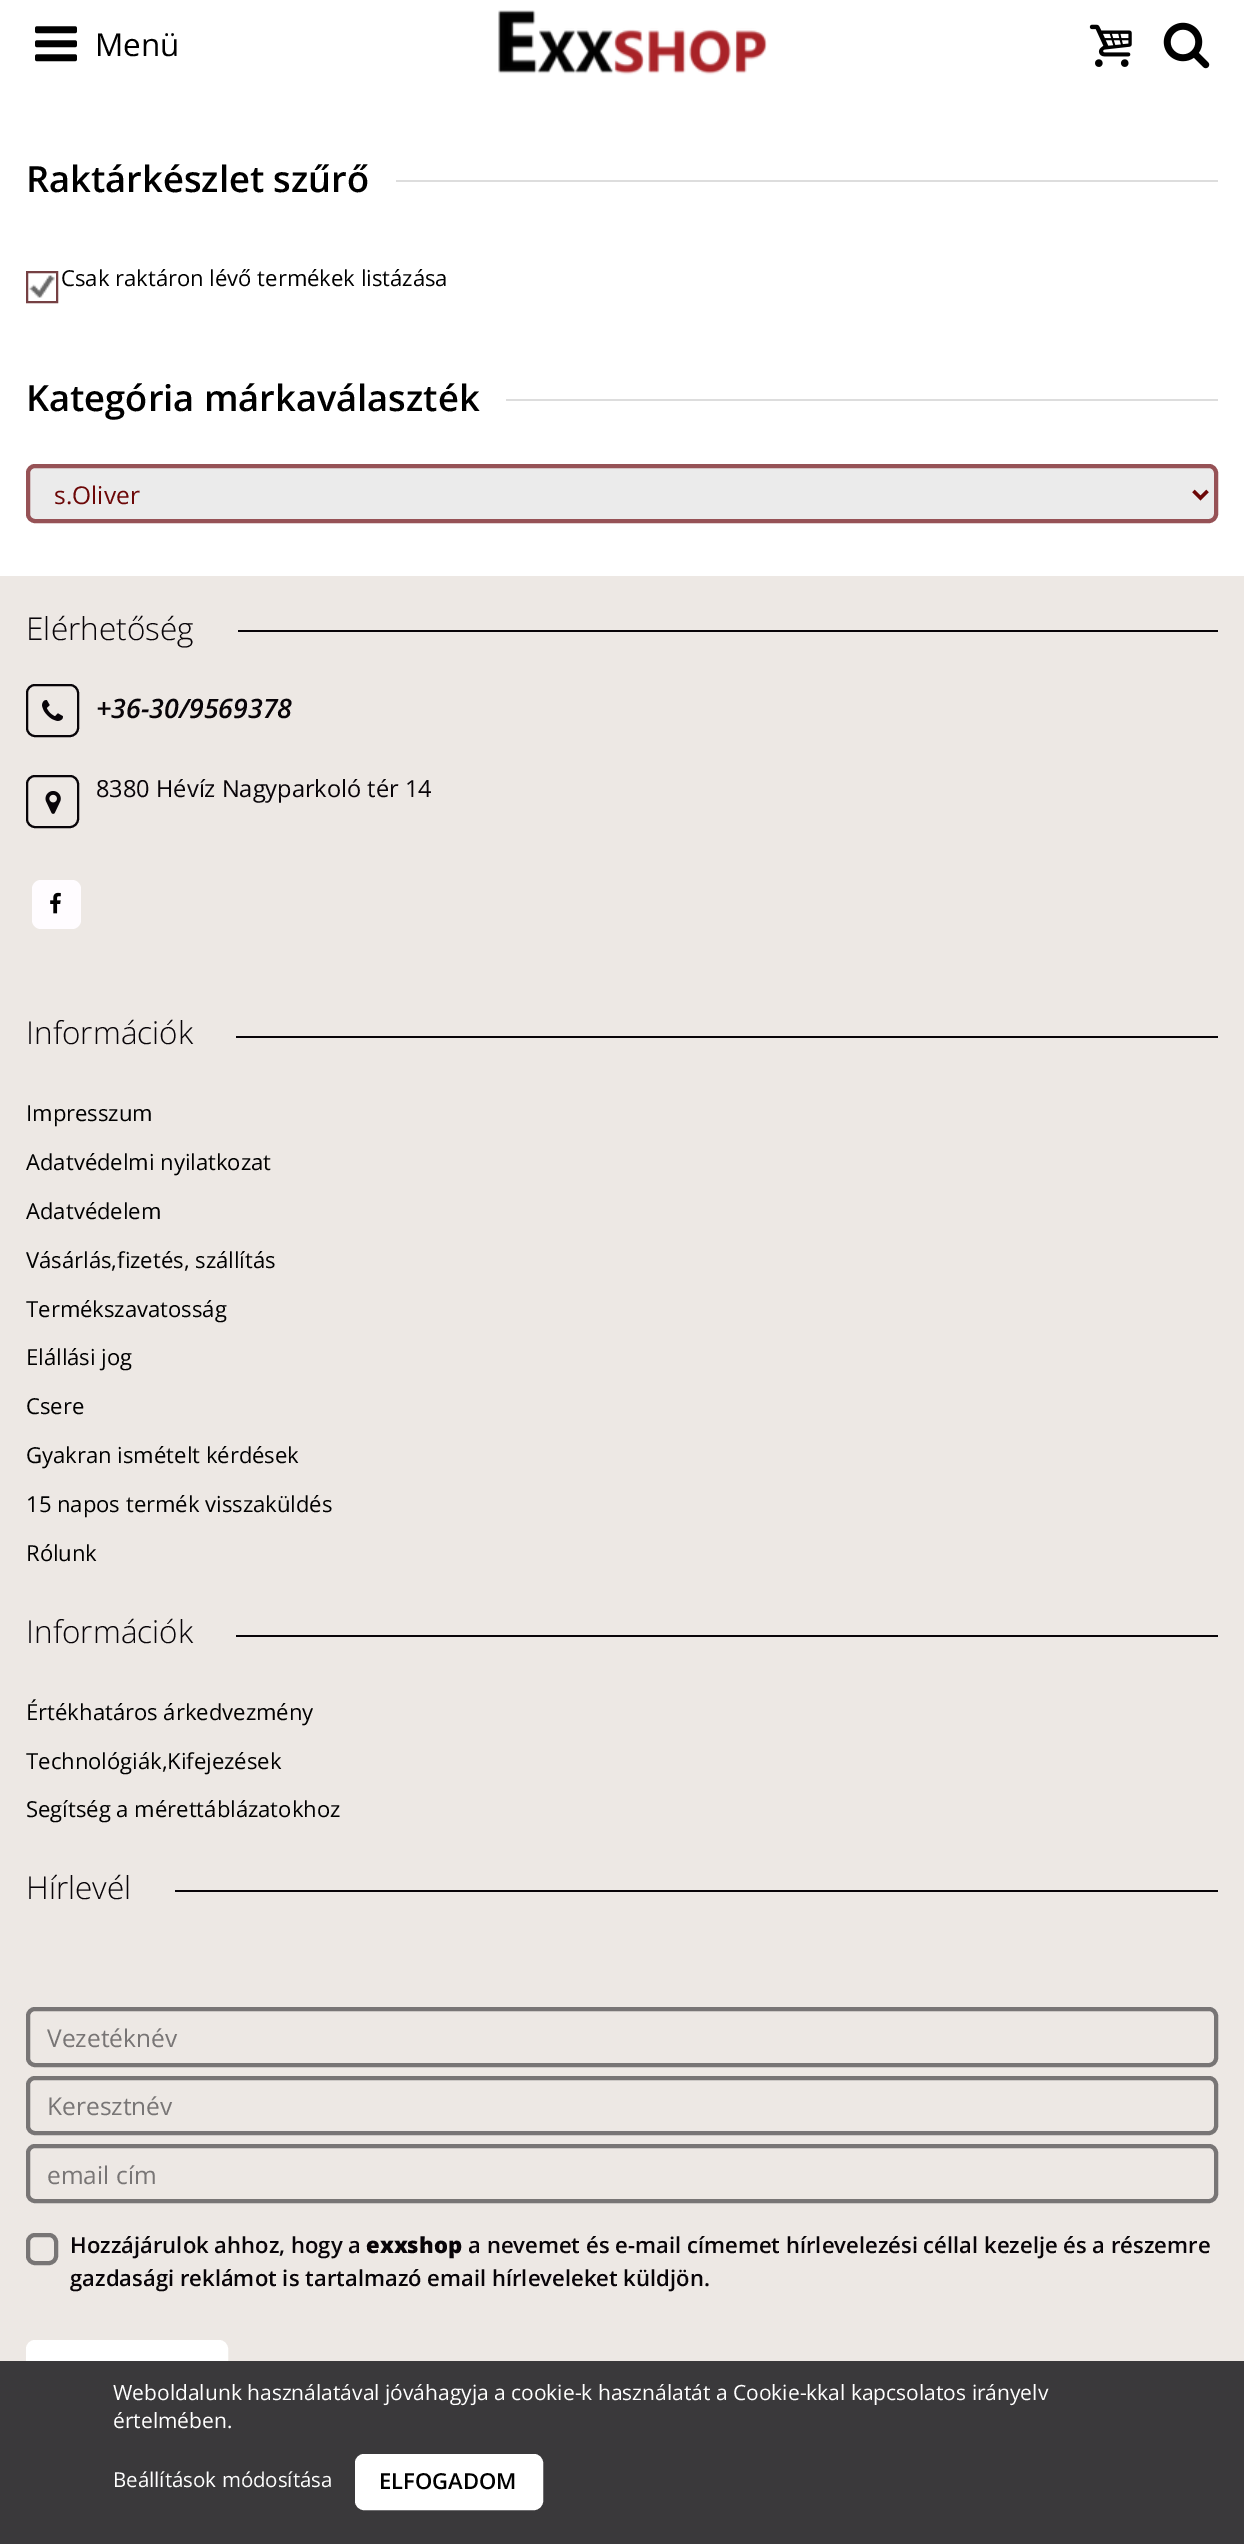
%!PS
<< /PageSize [1244 2544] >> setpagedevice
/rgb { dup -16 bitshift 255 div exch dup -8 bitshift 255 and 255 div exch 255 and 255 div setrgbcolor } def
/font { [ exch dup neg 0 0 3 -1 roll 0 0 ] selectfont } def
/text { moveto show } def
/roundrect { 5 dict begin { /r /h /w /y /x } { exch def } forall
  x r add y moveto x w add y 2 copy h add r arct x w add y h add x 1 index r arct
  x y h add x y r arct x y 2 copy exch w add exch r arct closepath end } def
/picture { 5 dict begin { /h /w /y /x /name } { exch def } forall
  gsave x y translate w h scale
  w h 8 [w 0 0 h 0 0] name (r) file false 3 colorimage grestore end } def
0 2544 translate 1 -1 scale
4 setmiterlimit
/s1 { /OpenSans-Regular 31.5 font 16#000000 rgb } def
/s2 { /OpenSans-SemiBold 36.25 font 16#000000 rgb } def
/s3 { /OpenSans-Regular 22.05 font 16#000000 rgb } def
/s4 { /OpenSans-Regular 24.5 font 16#6C0707 rgb } def
/s5 { /OpenSans-Light 31.5 font 16#080408 rgb } def
/s6 { /OpenSans-SemiBoldItalic 26.75 font 16#080408 rgb } def
/s7 { /OpenSans-Regular 23.6 font 16#080408 rgb } def
/s8 { /OpenSans-Regular 24.5 font 16#787575 rgb } def
/s9 { /OpenSans-SemiBold 22.05 font 16#080408 rgb } def
/s10 { /OpenSans-ExtraBold 22.05 font 16#080408 rgb } def
/s11 { /OpenSans-Regular 21 font 16#FFFFFF rgb } def
/s12 { /OpenSans-Regular 20.5 font 16#FFFFFF rgb } def
/s13 { /OpenSans-SemiBold 22.05 font 16#000000 rgb } def
16#FFFFFF rgb
0 0 1244 2544 rectfill
(pic1.raw) 35 26 42 36 picture
s1
(Menü) 95 56 text
(pic2.raw) 498 10 269 65 picture
(pic3.raw) 1089 24 43 43 picture
(pic4.raw) 1163 22 47 47 picture
s2
(Raktárkészlet szűrő) 26 192 text
16#DDDDDD rgb
396 180 822 2 rectfill
(pic5.raw) 29 275 26 23 picture
16#754043 rgb
2 setlinewidth
27 272 30 30 rectstroke
s3
(Csak raktáron lévő termékek listázása) 61 286 text
s2
(Kategória márkaválaszték) 26 411 text
16#DDDDDD rgb
506 399 712 2 rectfill
16#EBEBEB rgb
28 466 1188 55 7 roundrect gsave fill grestore
16#965256 rgb
4 setlinewidth
stroke
16#6C0707 rgb
3.5 setlinewidth
1193.5 491 moveto 1200.5 498 lineto 1207.5 491 lineto stroke
s4
(s.Oliver) 54 504 text
16#EDE8E4 rgb
0 576 1244 1785 rectfill
s5
(Elérhetőség) 26 640 text
238 630 980 2 rectfill
2 setlinewidth
27 685 51 51 8 roundrect stroke
(pic6.raw) 42 700 21 21 picture
s6
(+36-30/9569378) 96 718 text
27 776 51 51 8 roundrect stroke
(pic7.raw) 45 791 16 23 picture
s7
(8380 Hévíz Nagyparkoló tér 14) 96 797 text
16#FFFCFF rgb
32 880 49 49 9 roundrect fill
(pic8.raw) 50 892 11 22 picture
s5
(Információk) 26 1044 text
236 1036 982 2 rectfill
s3
(Impresszum) 26 1121 text
(Adatvédelmi nyilatkozat) 26 1170 text
(Adatvédelem) 26 1219 text
(Vásárlás,fizetés, szállítás) 26 1268 text
(Termékszavatosság) 26 1317 text
(Elállási jog) 26 1365 text
(Csere) 26 1414 text
(Gyakran ismételt kérdések) 26 1463 text
(15 napos termék visszaküldés) 26 1512 text
(Rólunk) 26 1561 text
s5
(Információk) 26 1643 text
236 1635 982 2 rectfill
s3
(Értékhatáros árkedvezmény) 26 1720 text
(Technológiák,Kifejezések) 26 1769 text
(Segítség a mérettáblázatokhoz) 26 1817 text
s5
(Hírlevél) 26 1899 text
175 1890 1043 2 rectfill
16#787575 rgb
4 setlinewidth
28 2009 1188 56 7 roundrect stroke
s8
(Vezetéknév) 47 2047 text
28 2078 1188 55 7 roundrect stroke
(Keresztnév) 47 2115 text
28 2146 1188 55 7 roundrect stroke
(email cím) 47 2184 text
28 2235 28 28 7 roundrect stroke
s9
(Hozzájárulok ahhoz, hogy a) 70 2253 text
s10
(exxshop) 366 2253 text
s9
(a nevemet és e-mail címemet hírlevelezési céllal kezelje és a részemre) 468 2253 text
(gazdasági reklámot is tartalmazó email hírleveleket küldjön.) 70 2286 text
16#FFFFFF rgb
28 2342 198 50 7 roundrect gsave fill grestore
stroke
16#3A393B rgb
0 2361 1244 183 rectfill
s11
(Weboldalunk használatával jóváhagyja a cookie-k használatát a Cookie-kkal kapcsolatos irányelv) 113 2400 text
(értelmében.) 113 2428 text
s12
(Beállítások módosítása) 113 2487 text
357 2456 184 52 7 roundrect gsave fill grestore
stroke
s13
(ELFOGADOM) 379 2489 text
showpage
